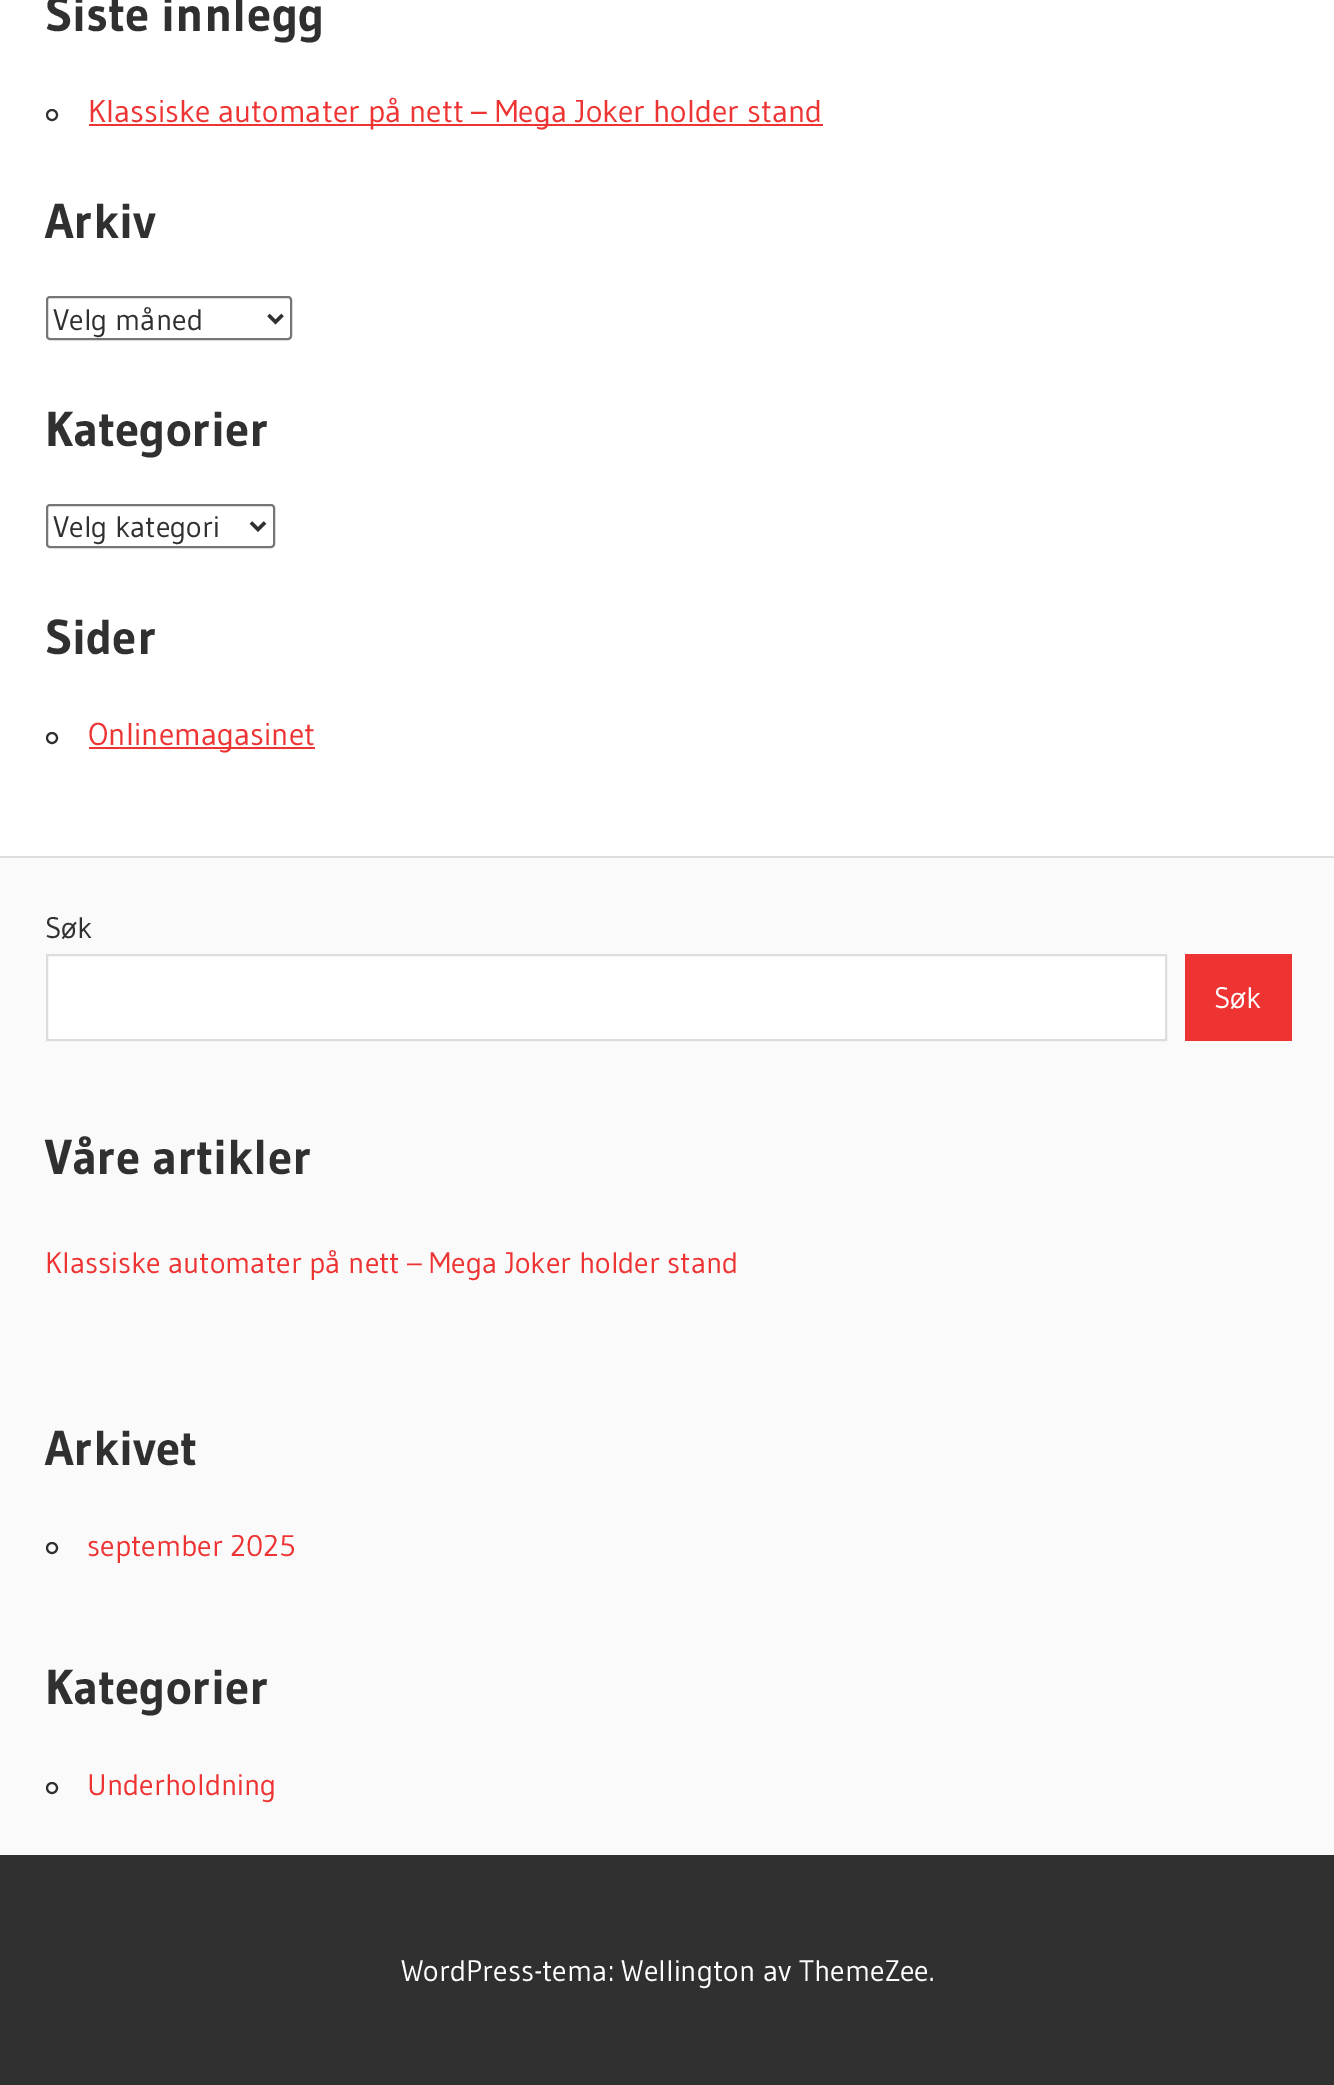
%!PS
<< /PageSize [1334 2085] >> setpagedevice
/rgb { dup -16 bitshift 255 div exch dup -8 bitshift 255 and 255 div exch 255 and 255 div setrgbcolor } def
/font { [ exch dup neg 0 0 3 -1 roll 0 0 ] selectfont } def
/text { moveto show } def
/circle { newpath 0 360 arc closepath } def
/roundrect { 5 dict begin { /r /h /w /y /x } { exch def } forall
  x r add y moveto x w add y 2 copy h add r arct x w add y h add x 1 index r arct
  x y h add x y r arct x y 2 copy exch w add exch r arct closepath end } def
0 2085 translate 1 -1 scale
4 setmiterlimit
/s1 { /Gudea-Bold 49 font 16#303030 rgb } def
/s2 { /Gudea-Regular 31.5 font 16#EE3333 rgb } def
/s3 { /Gudea-Regular 29.75 font 16#303030 rgb } def
/s4 { /Gudea-Regular 29.75 font 16#FFFFFF rgb } def
/s5 { /Gudea-Regular 29.75 font 16#EE3333 rgb } def
16#FFFFFF rgb
0 0 1334 2085 rectfill
s1
(Siste innlegg) 45 31 text
2 setlinewidth
52 115 5 circle stroke
16#EE3333 rgb
89 124 734 2 rectfill
s2
(Klassiske automater på nett – Mega Joker holder stand) 88 122 text
s1
(Arkiv) 45 238 text
16#767676 rgb
47 297 244 42 3 roundrect stroke
16#303030 rgb
3.5 setlinewidth
268.5 315 moveto 275.5 322 lineto 282.5 315 lineto stroke
s3
(Velg måned) 53 330 text
s1
(Kategorier) 45 446 text
16#767676 rgb
2 setlinewidth
47 505 227 42 3 roundrect stroke
16#303030 rgb
3.5 setlinewidth
251 522.5 moveto 258 529.5 lineto 265 522.5 lineto stroke
s3
(Velg kategori) 53 537 text
s1
(Sider) 45 654 text
2 setlinewidth
52 738 5 circle stroke
16#EE3333 rgb
89 747 226 2 rectfill
s2
(Onlinemagasinet) 88 745 text
16#FAFAFA rgb
0 858 1334 997 rectfill
16#DDDDDD rgb
0 856 1334 2 rectfill
s3
(Søk) 45 938 text
16#FFFFFF rgb
47 955 moveto 1166 955 lineto 1166 1040 lineto 47 1040 lineto closepath gsave fill grestore
16#DDDDDD rgb
stroke
16#EE3333 rgb
1185 954 107 87 rectfill
s4
(Søk) 1214 1008 text
s1
(Våre artikler) 45 1174 text
s5
(Klassiske automater på nett – Mega Joker holder stand) 45 1273 text
s1
(Arkivet) 45 1465 text
52 1548 5 circle stroke
s5
(september 2025) 87 1556 text
s1
(Kategorier) 45 1704 text
52 1788 5 circle stroke
s5
(Underholdning) 87 1795 text
16#303030 rgb
0 1855 1334 230 rectfill
s4
(WordPress-tema: Wellington av ThemeZee.) 401 1981 text
showpage
